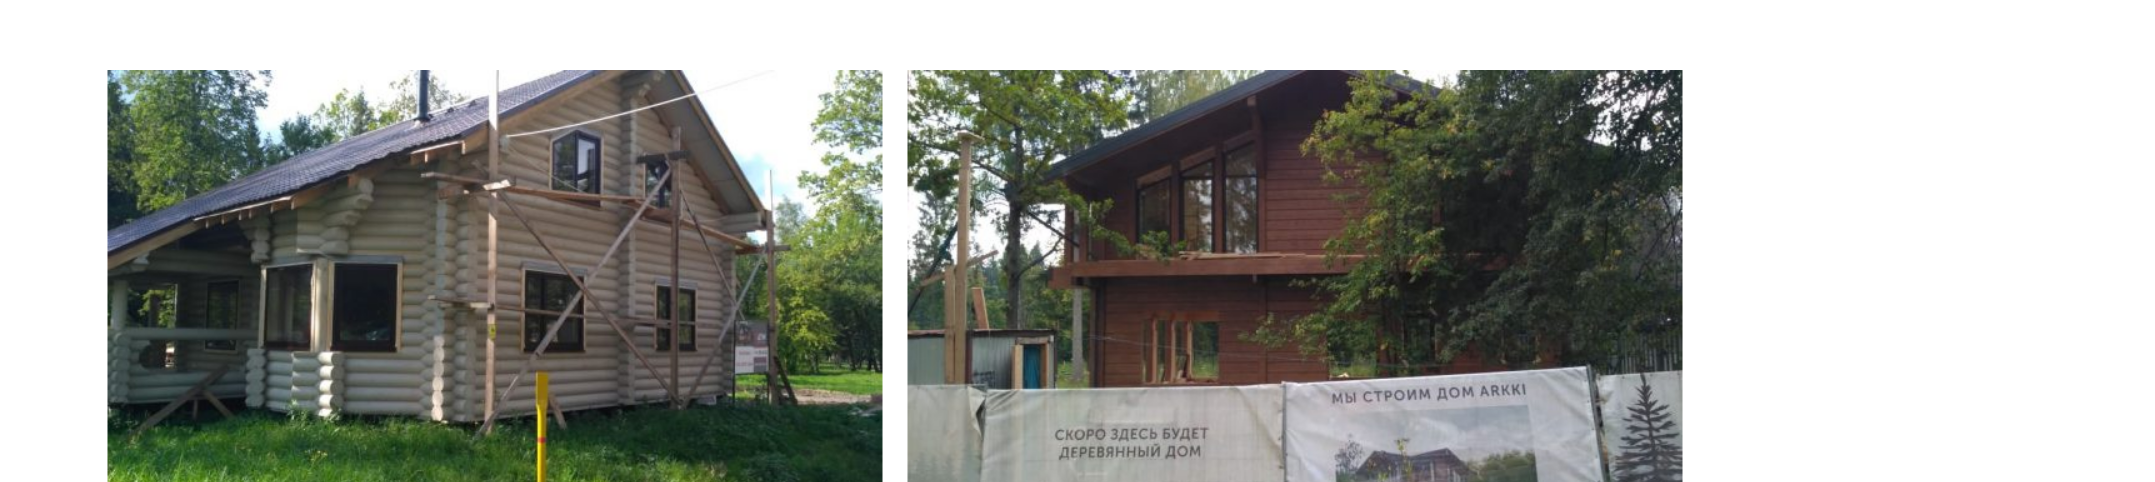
%!PS
<< /PageSize [2155 482] >> setpagedevice
/rgb { dup -16 bitshift 255 div exch dup -8 bitshift 255 and 255 div exch 255 and 255 div setrgbcolor } def
/picture { 5 dict begin { /h /w /y /x /name } { exch def } forall
  gsave x y translate w h scale
  w h 8 [w 0 0 h 0 0] name (r) file false 3 colorimage grestore end } def
0 482 translate 1 -1 scale
4 setmiterlimit
16#FFFFFF rgb
0 0 2155 482 rectfill
(pic1.raw) 107 70 776 412 picture
(pic2.raw) 907 70 776 412 picture
showpage
